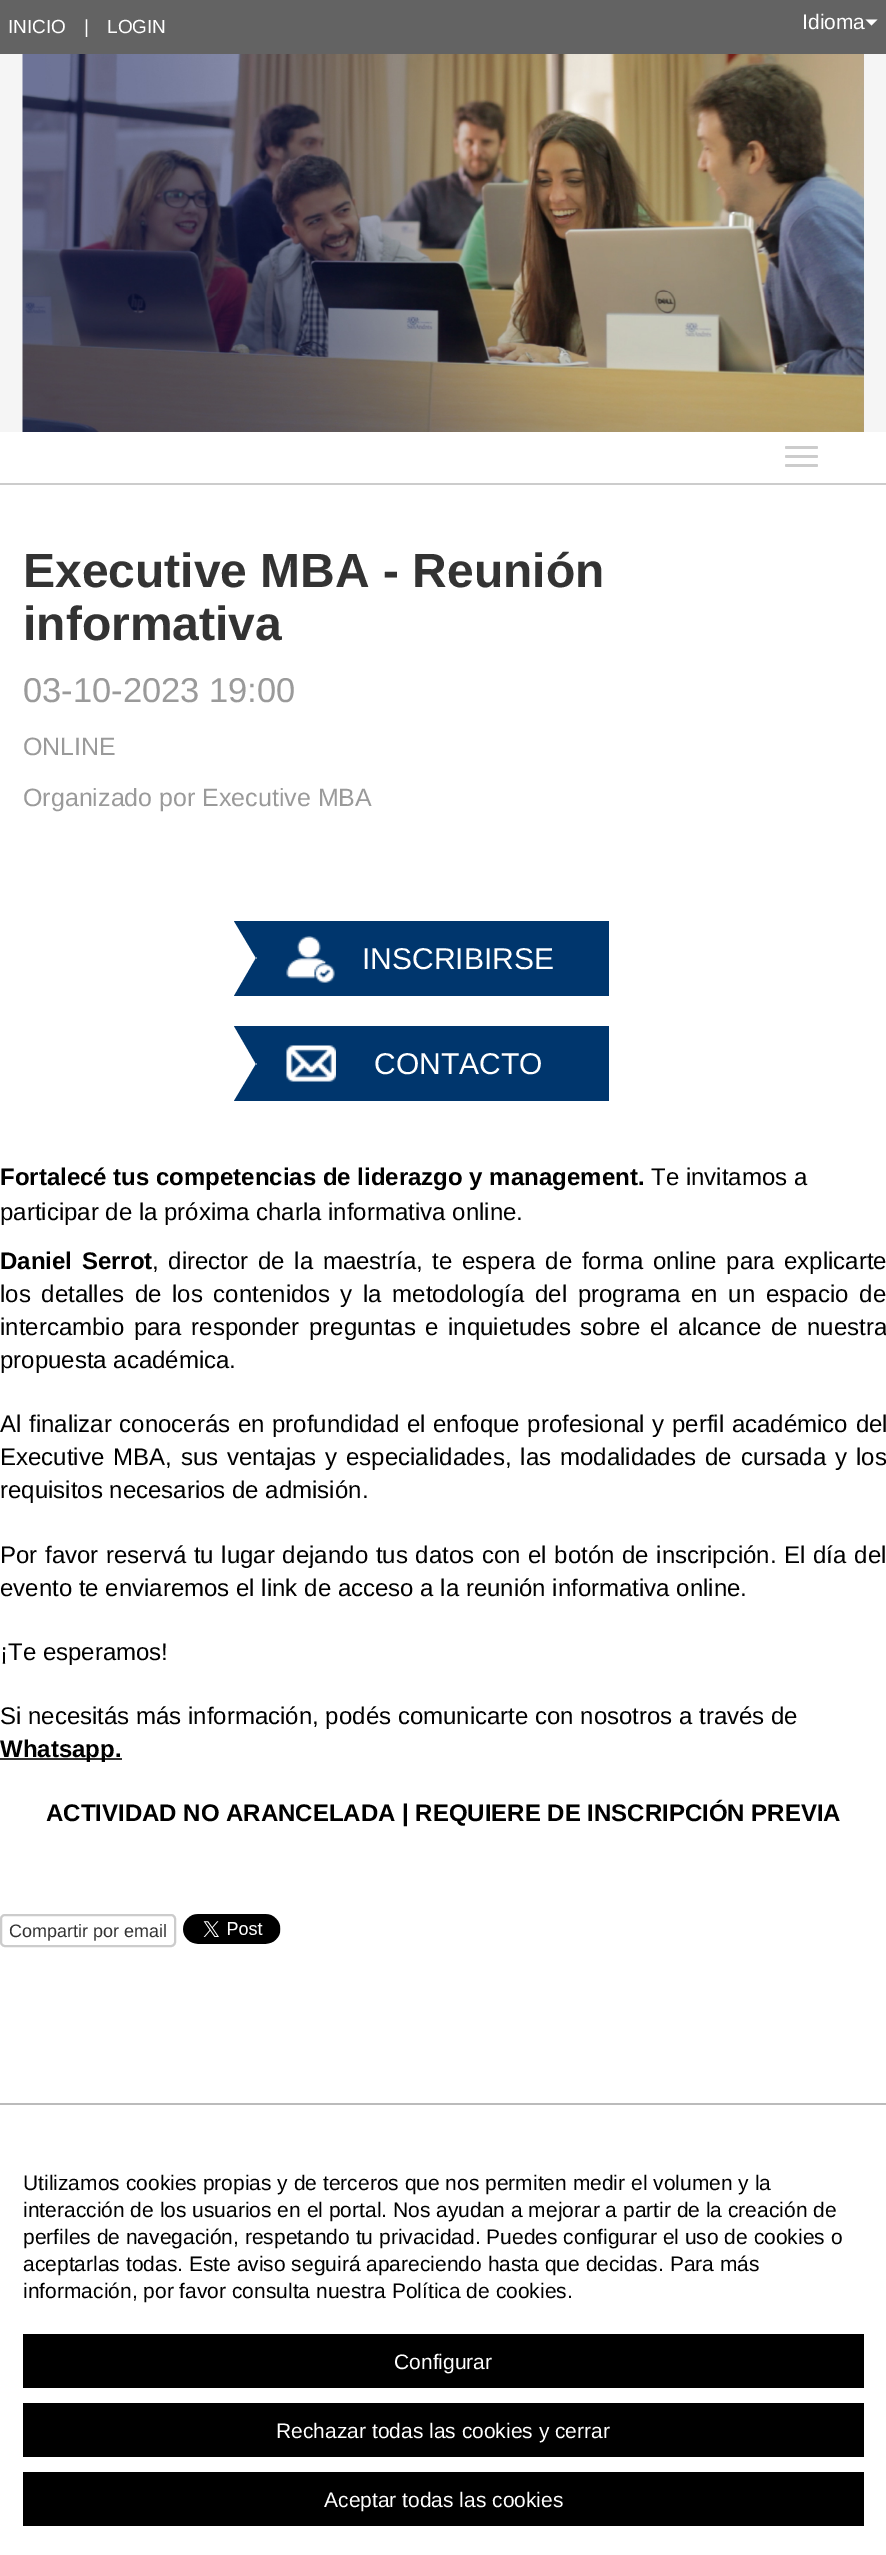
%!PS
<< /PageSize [886 2555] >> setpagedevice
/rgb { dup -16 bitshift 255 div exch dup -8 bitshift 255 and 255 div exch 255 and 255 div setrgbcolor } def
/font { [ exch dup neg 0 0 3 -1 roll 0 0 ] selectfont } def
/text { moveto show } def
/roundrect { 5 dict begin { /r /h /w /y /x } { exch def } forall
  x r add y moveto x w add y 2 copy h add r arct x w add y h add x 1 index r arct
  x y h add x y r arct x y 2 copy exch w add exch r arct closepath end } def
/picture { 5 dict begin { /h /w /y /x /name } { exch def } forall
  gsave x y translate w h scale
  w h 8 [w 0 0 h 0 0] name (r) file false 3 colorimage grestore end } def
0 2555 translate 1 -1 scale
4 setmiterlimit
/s1 { /LiberationSans-Regular 19 font 16#FFFFFF rgb } def
/s2 { /LiberationSans-Regular 21 font 16#FFFFFF rgb } def
/s3 { /LiberationSans-Bold 48 font 16#333333 rgb } def
/s4 { /LiberationSans-Regular 34.5 font 16#9A9A9A rgb } def
/s5 { /LiberationSans-Regular 25 font 16#9A9A9A rgb } def
/s6 { /LiberationSans-Regular 30 font 16#FFFFFF rgb } def
/s7 { /LiberationSans-Bold 24 font 16#000000 rgb } def
/s8 { /LiberationSans-Regular 24 font 16#000000 rgb } def
/s9 { /LiberationSans-Regular 18 font 16#333333 rgb } def
/s10 { /LiberationSans-Regular 21 font 16#000000 rgb } def
16#FFFFFF rgb
0 0 886 2555 rectfill
16#636363 rgb
0 0 886 54 rectfill
s1
(INICIO) 8 33 text
(|) 84 33 text
(LOGIN) 107 33 text
s2
(Idioma) 802 29 text
865.5 19.5 moveto 877.5 19.5 lineto 871.5 25.5 lineto closepath fill
16#F5F5F5 rgb
0 54 886 378 rectfill
(pic1.raw) 22 54 842 378 picture
16#CCCCCC rgb
0 483 886 2 rectfill
785 446 33 3 1.5 roundrect fill
785 455 33 3 1.5 roundrect fill
785 464 33 3 1.5 roundrect fill
s3
(Executive MBA - Reunión) 23 587 text
(informativa) 23 640 text
s4
(03-10-2023 19:00) 23 702 text
s5
(ONLINE) 23 755 text
(Organizado por Executive MBA) 23 806 text
16#00366D rgb
279 921 330 75 rectfill
234 921 moveto 279 921 lineto 256 958 lineto closepath fill
257 921 22 75 rectfill
279 996 moveto 234 996 lineto 256 958 lineto closepath fill
(pic2.raw) 286 936 49 47 picture
s6
(INSCRIBIRSE) 362 969 text
16#00366D rgb
279 1026 330 75 rectfill
234 1026 moveto 279 1026 lineto 256 1064 lineto closepath fill
257 1026 22 75 rectfill
279 1101 moveto 234 1101 lineto 256 1064 lineto closepath fill
(pic3.raw) 286 1045 50 37 picture
s6
(CONTACTO) 374 1074 text
s7
(Fortalecé tus competencias de liderazgo y management.) 0 1185 text
s8
(Te invitamos a) 651 1185 text
(participar de la próxima charla informativa online.) 0 1220 text
/LiberationSans-Bold 24 font
0 1269 moveto 3 0 32 (Daniel Serrot) widthshow
/LiberationSans-Regular 24 font
152 1269 moveto 3 0 32 (, director de la maestría, te espera de forma online para explicarte) widthshow
0 1302 moveto 4 0 32 (los detalles de los contenidos y la metodología del programa en un espacio de) widthshow
0 1335 moveto 2.9 0 32 (intercambio para responder preguntas e inquietudes sobre el alcance de nuestra) widthshow
(propuesta académica.) 0 1368 text
0 1432 moveto 1 0 32 (Al finalizar conocerás en profundidad el enfoque profesional y perfil académico del) widthshow
0 1465 moveto 2.25 0 32 (Executive MBA, sus ventajas y especialidades, las modalidades de cursada y los) widthshow
(requisitos necesarios de admisión.) 0 1498 text
0 1563 moveto 1 0 32 (Por favor reservá tu lugar dejando tus datos con el botón de inscripción. El día del) widthshow
(evento te enviaremos el link de acceso a la reunión informativa online.) 0 1596 text
(¡Te esperamos!) 0 1660 text
(Si necesitás más información, podés comunicarte con nosotros a través de) 0 1724 text
16#333333 rgb
0 1758 122 2 rectfill
s7
(Whatsapp.) 0 1757 text
(ACTIVIDAD NO ARANCELADA | REQUIERE DE INSCRIPCIÓN PREVIA) 46 1821 text
16#CCCCCC rgb
2 setlinewidth
1 1915 174 31 4 roundrect stroke
s9
(Compartir por email) 9 1937 text
(pic4.raw) 183 1914 98 30 picture
16#BBBBBB rgb
0 2103 886 2 rectfill
s10
(Utilizamos cookies propias y de terceros que nos permiten medir el volumen y la) 23 2190 text
(interacción de los usuarios en el portal. Nos ayudan a mejorar a partir de la creación de) 23 2217 text
(perfiles de navegación, respetando tu privacidad. Puedes configurar el uso de cookies o) 23 2244 text
(aceptarlas todas. Este aviso seguirá apareciendo hasta que decidas. Para más) 23 2271 text
(información, por favor consulta nuestra Política de cookies.) 23 2298 text
23 2334 841 54 rectfill
s2
(Configurar) 394 2369 text
16#000000 rgb
23 2403 841 54 rectfill
s2
(Rechazar todas las cookies y cerrar) 276 2438 text
16#000000 rgb
23 2472 841 54 rectfill
s2
(Aceptar todas las cookies) 324 2507 text
showpage
